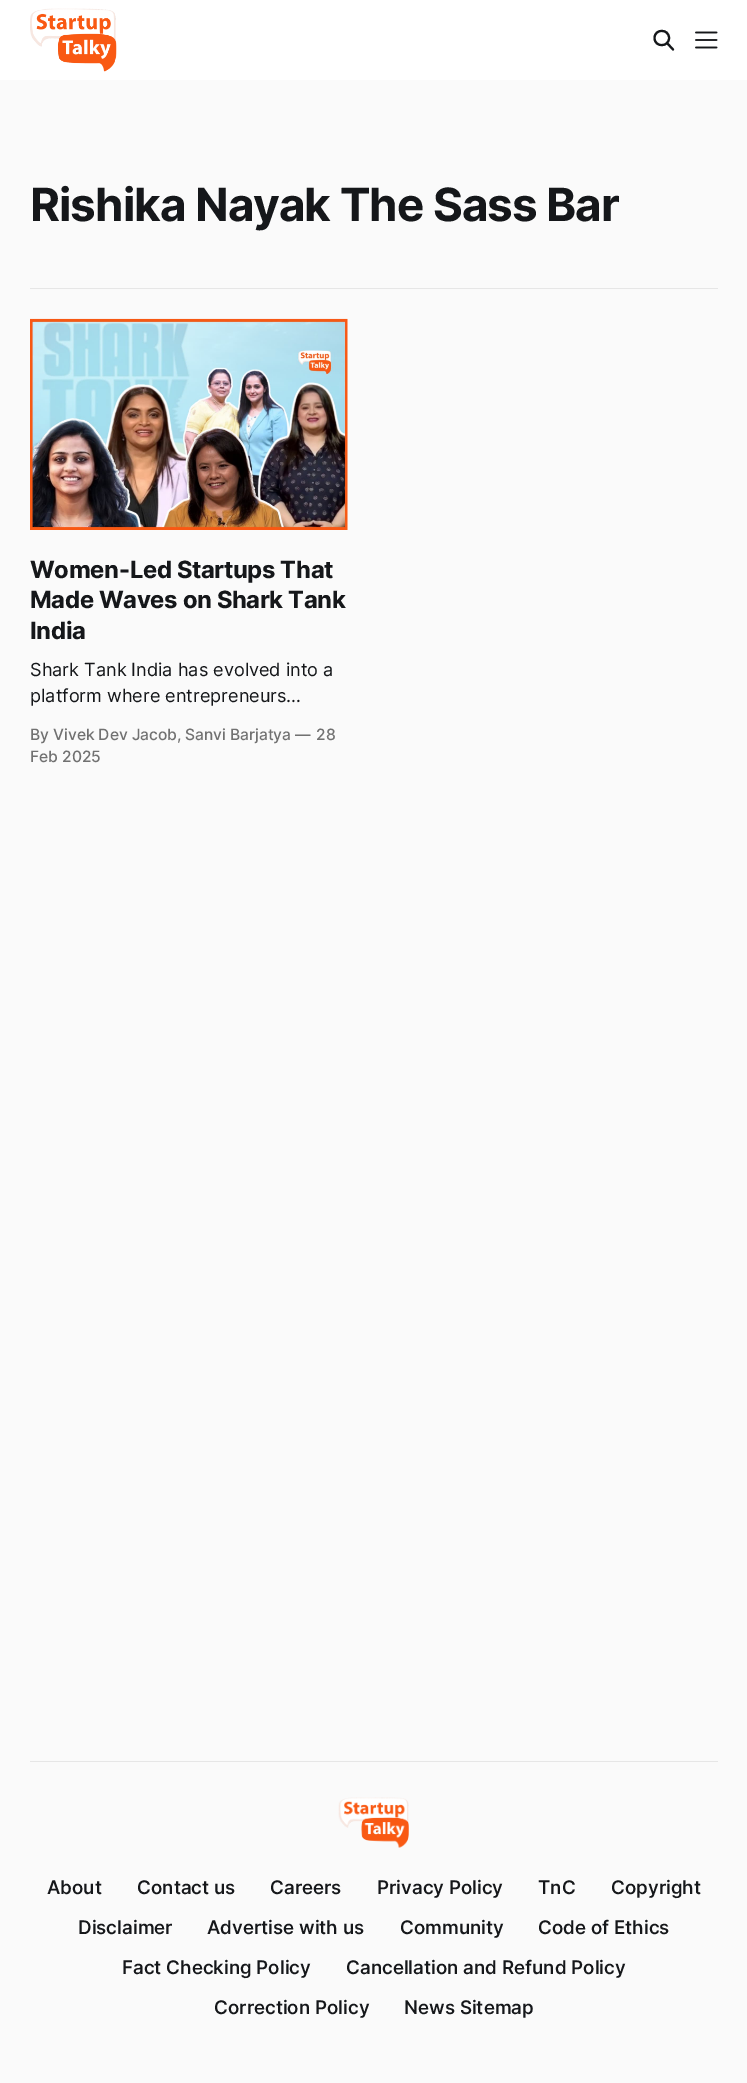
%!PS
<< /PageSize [747 2083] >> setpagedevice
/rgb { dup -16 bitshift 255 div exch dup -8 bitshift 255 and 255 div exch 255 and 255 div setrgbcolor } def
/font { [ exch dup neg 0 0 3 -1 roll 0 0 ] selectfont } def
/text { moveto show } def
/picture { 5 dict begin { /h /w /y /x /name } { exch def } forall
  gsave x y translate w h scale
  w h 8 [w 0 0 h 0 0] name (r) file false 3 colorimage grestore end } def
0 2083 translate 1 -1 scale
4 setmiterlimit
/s1 { /Inter-Regular 18.1 font 16#15171A rgb } def
/s2 { /Inter-Medium 18.75 font 16#15171A rgb } def
16#FAFAFA rgb
0 0 747 2083 rectfill
16#FFFFFF rgb
0 0 747 80 rectfill
(pic1.raw) 30 8 87 64 picture
16#15171A rgb
2.1 setlinewidth
1 setlinecap
1 setlinejoin
673 49.5 moveto 667 43 lineto 669 38 moveto 669 47.5 654.5 47.5 654.5 38 curveto 654.5 28.5 669 28.5 669 38 curveto closepath stroke
(pic2.raw) 695 31 23 18 picture
16#E6E6E6 rgb
30 288 688 1 rectfill
/Inter-Bold 45.75 font
16#15171A rgb
30 221 moveto -1 0 (Rishika Nayak The Sass Bar) ashow
(pic3.raw) 30 318 318 212 picture
/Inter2-Bold 23.75 font
30 578 moveto -0.3 0 (Women-Led Startups That) ashow
30 608 moveto -0.3 0 (Made Waves on Shark Tank) ashow
30 639 moveto -0.3 0 (India) ashow
s1
(Shark Tank India has evolved into a) 30 676 text
(platform where entrepreneurs…) 30 702 text
/Inter2-Medium 15.6 font
16#717171 rgb
30 740 moveto -0.05 0 (By Vivek Dev Jacob, Sanvi Barjatya —) ashow
316 740 moveto -0.05 0 (28) ashow
30 762 moveto -0.05 0 (Feb 2025) ashow
16#E6E6E6 rgb
30 1761 688 1 rectfill
(pic4.raw) 338 1797 71 51 picture
s2
(About) 47 1894 text
(Contact us) 137 1894 text
(Careers) 270 1894 text
(Privacy Policy) 377 1894 text
(TnC) 538 1894 text
(Copyright) 611 1894 text
(Disclaimer) 78 1934 text
(Advertise with us) 207 1934 text
(Community) 400 1934 text
(Code of Ethics) 538 1934 text
(Fact Checking Policy) 122 1974 text
(Cancellation and Refund Policy) 346 1974 text
(Correction Policy) 214 2014 text
(News Sitemap) 404 2014 text
showpage
